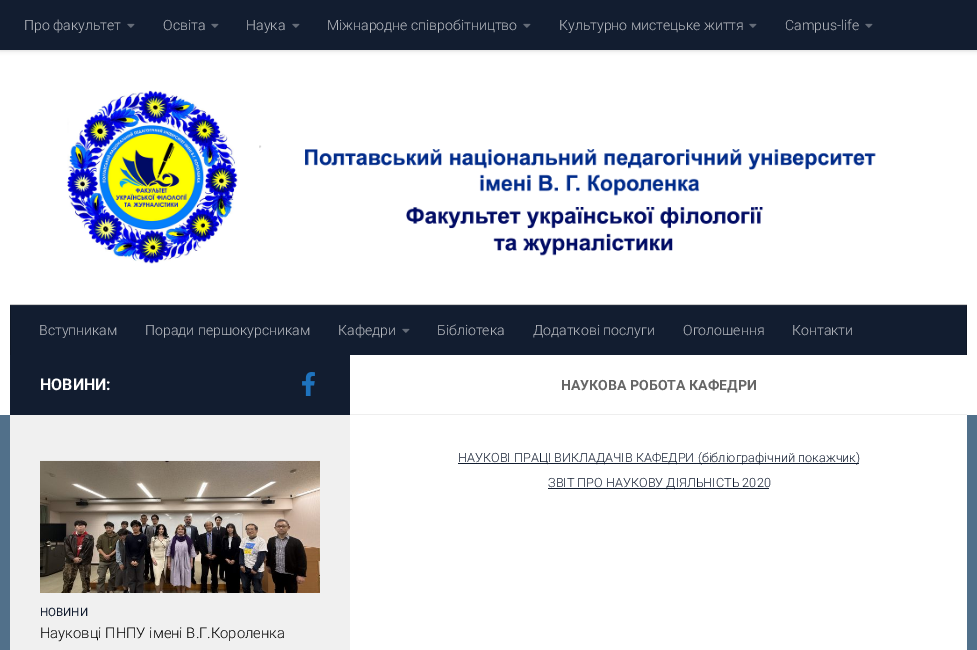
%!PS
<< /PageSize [977 650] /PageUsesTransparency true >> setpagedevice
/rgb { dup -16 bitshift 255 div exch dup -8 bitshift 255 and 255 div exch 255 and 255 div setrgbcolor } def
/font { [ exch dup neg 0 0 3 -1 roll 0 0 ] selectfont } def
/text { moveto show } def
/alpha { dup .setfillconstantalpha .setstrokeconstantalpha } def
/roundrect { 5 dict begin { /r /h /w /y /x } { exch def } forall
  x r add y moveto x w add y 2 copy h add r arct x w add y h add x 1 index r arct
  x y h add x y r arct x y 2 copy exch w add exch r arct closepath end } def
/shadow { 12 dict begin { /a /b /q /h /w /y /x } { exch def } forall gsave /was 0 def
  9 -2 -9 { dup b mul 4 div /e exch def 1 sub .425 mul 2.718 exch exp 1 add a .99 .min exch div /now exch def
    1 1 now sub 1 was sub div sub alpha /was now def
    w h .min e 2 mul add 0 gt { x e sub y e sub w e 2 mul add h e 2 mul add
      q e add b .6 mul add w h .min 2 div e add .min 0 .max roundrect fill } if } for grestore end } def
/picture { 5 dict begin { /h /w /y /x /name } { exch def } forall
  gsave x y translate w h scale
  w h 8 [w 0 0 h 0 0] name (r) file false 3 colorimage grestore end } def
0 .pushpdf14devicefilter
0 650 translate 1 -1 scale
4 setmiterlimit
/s1 { /Roboto-Light 14.1 font 16#B8BBC1 rgb } def
/s2 { /Roboto-Bold 16 font 16#FFFFFF rgb } def
/s3 { /Roboto-Regular 11.5 font 16#121D30 rgb } def
/s4 { /Roboto-Light 14.8 font 16#000000 rgb } def
/s5 { /Roboto-Bold 14.1 font 16#666666 rgb } def
/s6 { /Roboto-Light 12.7 font 16#121D30 rgb } def
16#51708A rgb
0 0 977 650 rectfill
16#FFFFFF rgb
0 50 977 365 rectfill
16#000000 rgb
0 0 977 50 0 2.5 0.2 shadow
16#121D30 rgb
0 0 977 50 rectfill
s1
(Про факультет) 24 30 text
(pic1.raw) 127 23 8 5 picture
(Освіта) 163 30 text
(pic1.raw) 211 23 8 5 picture
(Наука) 246 30 text
(pic1.raw) 292 23 8 5 picture
(Міжнародне співробітництво) 327 30 text
(pic1.raw) 523 23 8 5 picture
(Культурно мистецьке життя) 559 30 text
(pic1.raw) 749 23 8 5 picture
(Campus-life) 785 30 text
(pic1.raw) 865 23 8 5 picture
(pic2.raw) 66 90 810 174 picture
16#CCCCCC rgb
10 304 957 1 rectfill
16#121D30 rgb
11 306 955 49 rectfill
16#1E283A rgb
10 305 957 1 rectfill
16#0E1726 rgb
966 305 1 50 rectfill
16#1A2331 rgb
966 305 1 1 rectfill
16#0E1726 rgb
10 305 1 50 rectfill
16#1A2331 rgb
10 305 1 1 rectfill
s1
(Вступникам) 39 335 text
(Поради першокурсникам) 145 335 text
(Кафедри) 338 335 text
(pic1.raw) 402 328 8 5 picture
(Бібліотека) 437 335 text
(Додаткові послуги) 533 335 text
(Оголошення) 683 335 text
(Контакти) 792 335 text
16#FFFFFF rgb
350 415 617 235 rectfill
16#121D30 rgb
10 355 340 60 rectfill
s2
(НОВИНИ:) 40 390 text
(pic3.raw) 302 372 13 24 picture
16#F0F0F0 rgb
10 415 340 235 rectfill
(pic4.raw) 40 460 280 133 picture
s3
(НОВИНИ) 40 616 text
s4
(Науковці ПНПУ імені В.Г.Короленка) 40 638 text
16#EEEEEE rgb
350 414 617 1 rectfill
s5
(НАУКОВА РОБОТА КАФЕДРИ) 561 390 text
16#121D30 rgb
458 463 401 1 rectfill
s6
(НАУКОВІ ПРАЦІ ВИКЛАДАЧІВ КАФЕДРИ \(бібліографічний покажчик\)) 458 462 text
548 488 221 1 rectfill
(ЗВІТ ПРО НАУКОВУ ДІЯЛЬНІСТЬ 2020) 548 487 text
.poppdf14devicefilter showpage
